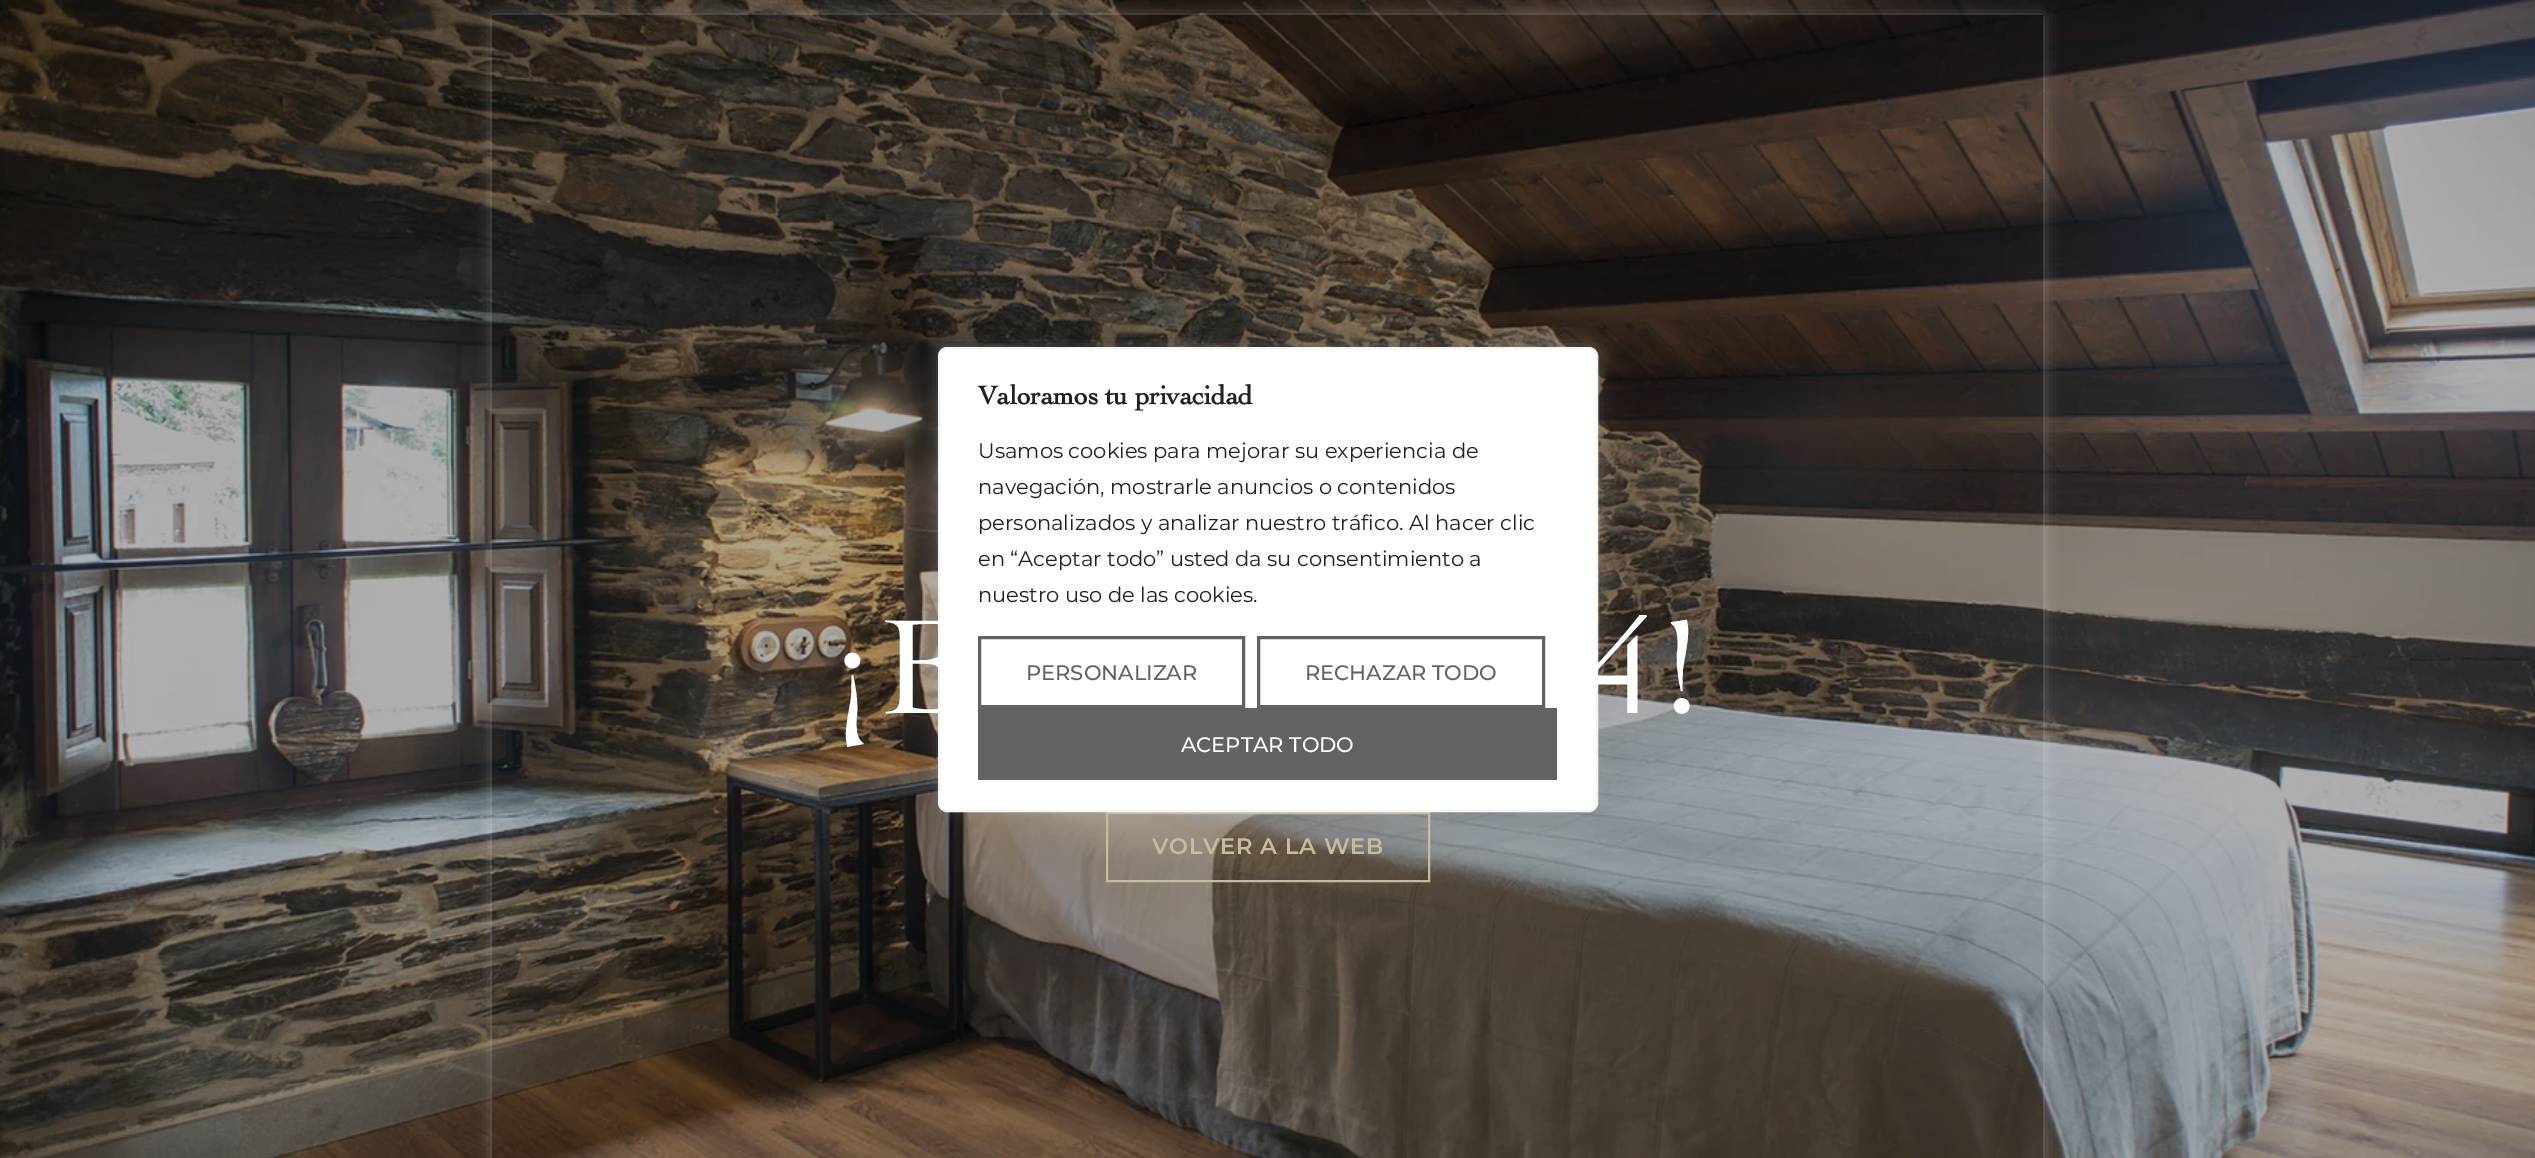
%!PS
<< /PageSize [2535 1158] /PageUsesTransparency true >> setpagedevice
/rgb { dup -16 bitshift 255 div exch dup -8 bitshift 255 and 255 div exch 255 and 255 div setrgbcolor } def
/font { [ exch dup neg 0 0 3 -1 roll 0 0 ] selectfont } def
/text { moveto show } def
/alpha { dup .setfillconstantalpha .setstrokeconstantalpha } def
/roundrect { 5 dict begin { /r /h /w /y /x } { exch def } forall
  x r add y moveto x w add y 2 copy h add r arct x w add y h add x 1 index r arct
  x y h add x y r arct x y 2 copy exch w add exch r arct closepath end } def
/shadow { 12 dict begin { /a /b /q /h /w /y /x } { exch def } forall gsave /was 0 def
  9 -2 -9 { dup b mul 4 div /e exch def 1 sub .425 mul 2.718 exch exp 1 add a .99 .min exch div /now exch def
    1 1 now sub 1 was sub div sub alpha /was now def
    w h .min e 2 mul add 0 gt { x e sub y e sub w e 2 mul add h e 2 mul add
      q e add b .6 mul add w h .min 2 div e add .min 0 .max roundrect fill } if } for grestore end } def
/picture { 5 dict begin { /h /w /y /x /name } { exch def } forall
  gsave x y translate w h scale
  w h 8 [w 0 0 h 0 0] name (r) file false 3 colorimage grestore end } def
0 .pushpdf14devicefilter
0 1158 translate 1 -1 scale
4 setmiterlimit
/s1 { /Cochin-Bold 27 font 16#212121 rgb } def
/s2 { /Montserrat-Regular 21 font 16#212121 rgb } def
/s3 { /Cochin-Medium 142 font 16#FFFFFF rgb } def
/s4 { /Montserrat-Medium 21 font 16#626262 rgb } def
/s5 { /Montserrat-Medium 21 font 16#FFFFFF rgb } def
16#FFFFFF rgb
0 0 2535 1158 rectfill
(pic1.raw) 0 0 2535 1158 picture
gsave
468 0 moveto 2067 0 lineto 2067 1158 lineto 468 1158 lineto closepath 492 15 moveto 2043 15 lineto 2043 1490 lineto 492 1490 lineto closepath eoclip newpath
492 15 1551 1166 0 7.5 0.28 shadow
grestore
16#C5BB9F rgb
2 setlinewidth
1107 813 322 68 rectstroke
16#ACABAB rgb
938 345 660 465 9 7.5 0.3 shadow
16#FFFFFF rgb
939 348 658 463 8 roundrect gsave fill grestore
16#F4F4F4 rgb
stroke
s1
(Valoramos tu privacidad) 978 404 text
s2
(Usamos cookies para mejorar su experiencia de) 978 458 text
(navegación, mostrarle anuncios o contenidos) 978 494 text
(personalizados y analizar nuestro tráfico. Al hacer clic) 978 530 text
(en “Aceptar todo” usted da su consentimiento a) 978 566 text
(nuestro uso de las cookies.) 978 602 text
s3
(¡E) 825 713 text
16#626262 rgb
3 setlinewidth
979.5 637.5 264 69 rectstroke
s4
(PERSONALIZAR) 1026 680 text
1258.5 637.5 285 69 rectstroke
(RECHAZAR TODO) 1305 680 text
978 708 579 72 rectfill
s5
(ACEPTAR TODO) 1181 752 text
s3
(4!) 1583 713 text
/Montserrat-SemiBold 22.5 font
16#C5BB9F rgb
1152 854 moveto 0.75 0 (VOLVER A LA WEB) ashow
.poppdf14devicefilter showpage
